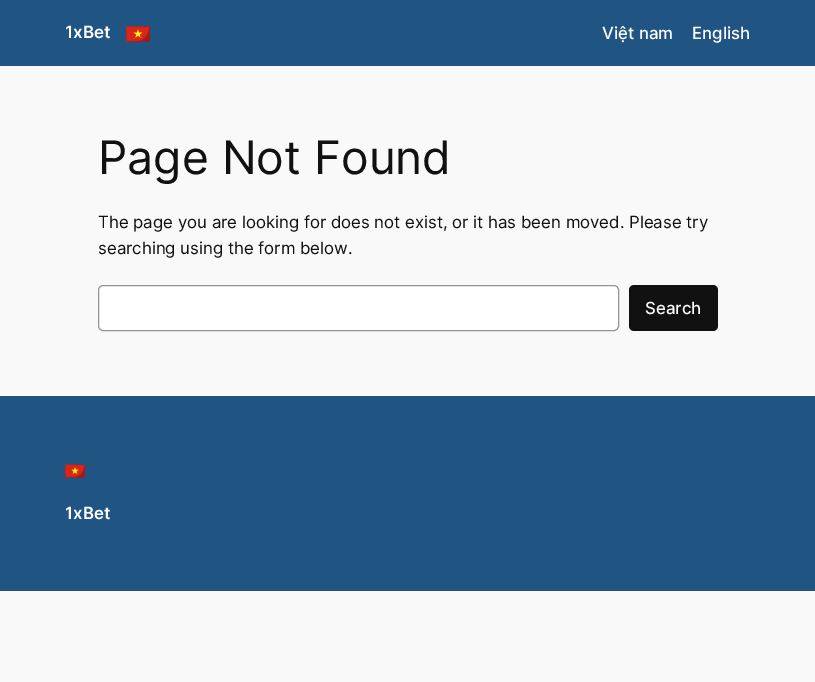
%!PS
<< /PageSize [815 682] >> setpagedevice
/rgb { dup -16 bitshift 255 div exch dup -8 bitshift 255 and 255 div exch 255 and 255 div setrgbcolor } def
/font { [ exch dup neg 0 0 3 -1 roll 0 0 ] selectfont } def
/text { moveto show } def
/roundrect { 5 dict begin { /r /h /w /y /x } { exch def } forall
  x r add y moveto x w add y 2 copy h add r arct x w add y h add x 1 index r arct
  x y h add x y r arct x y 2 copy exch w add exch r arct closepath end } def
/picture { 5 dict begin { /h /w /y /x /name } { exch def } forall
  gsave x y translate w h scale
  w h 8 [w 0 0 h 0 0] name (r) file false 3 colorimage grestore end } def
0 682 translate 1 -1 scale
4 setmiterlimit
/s1 { /Inter-SemiBold 17 font 16#FFFFFF rgb } def
/s2 { /Inter-Medium 16.8 font 16#FFFFFF rgb } def
/s3 { /Inter-Regular 46.25 font 16#111111 rgb } def
/s4 { /Inter-Regular 16.8 font 16#111111 rgb } def
/s5 { /Inter-Medium 16.8 font 16#F9F9F9 rgb } def
/s6 { /Inter-SemiBold 16.8 font 16#FFFFFF rgb } def
16#F9F9F9 rgb
0 0 815 682 rectfill
16#205583 rgb
0 0 815 66 rectfill
s1
(1xBet) 65 38 text
(pic1.raw) 126 26 24 16 picture
s2
(Việt nam) 602 39 text
(English) 692 39 text
s3
(Page Not Found) 98 174 text
s4
(The page you are looking for does not exist, or it has been moved. Please try) 98 228 text
(searching using the form below.) 98 254 text
16#FFFFFF rgb
98.5 285.5 520 45 4.5 roundrect gsave fill grestore
16#949494 rgb
stroke
16#111111 rgb
629 285 89 46 5 roundrect fill
s5
(Search) 645 314 text
16#205583 rgb
0 396 815 195 rectfill
(pic2.raw) 65 464 20 14 picture
s6
(1xBet) 65 519 text
showpage
